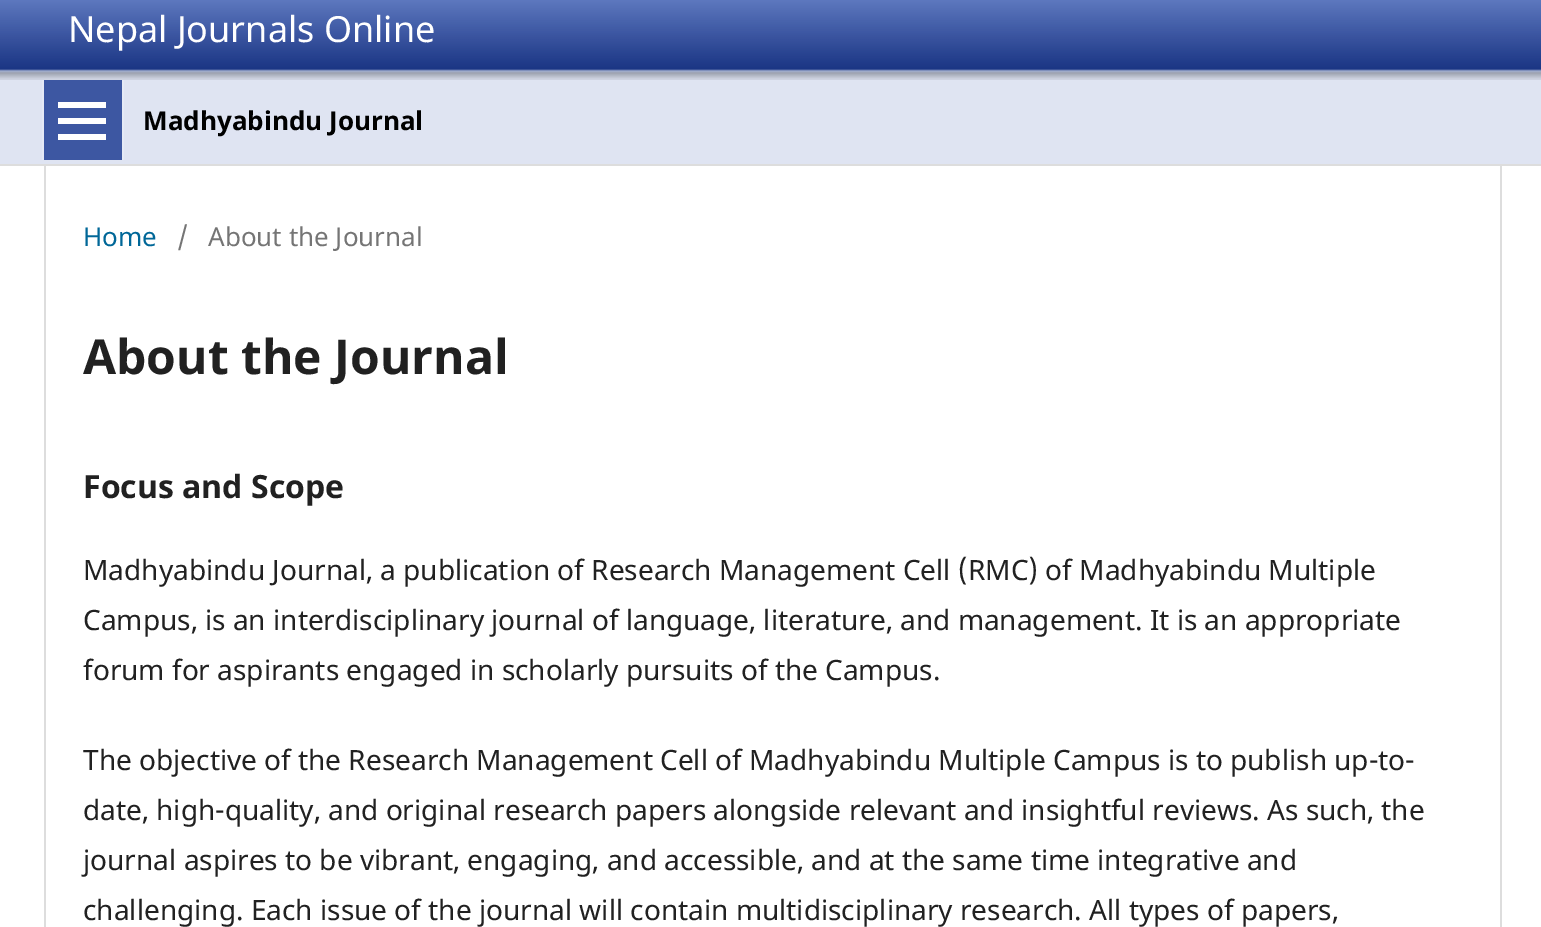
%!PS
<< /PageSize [1541 927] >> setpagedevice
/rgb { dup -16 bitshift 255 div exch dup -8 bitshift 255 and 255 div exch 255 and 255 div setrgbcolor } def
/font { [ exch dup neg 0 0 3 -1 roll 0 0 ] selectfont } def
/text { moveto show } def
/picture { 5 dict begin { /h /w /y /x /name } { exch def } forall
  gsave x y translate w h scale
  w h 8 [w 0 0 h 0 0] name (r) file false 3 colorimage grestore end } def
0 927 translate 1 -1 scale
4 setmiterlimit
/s1 { /NotoSans-Regular 36 font 16#FFFFFF rgb } def
/s2 { /NotoSans-Bold 26 font 16#000000 rgb } def
/s3 { /NotoSans-Regular 26 font 16#006798 rgb } def
/s4 { /NotoSans-Regular 26 font 16#757575 rgb } def
/s5 { /NotoSans-Bold 48 font 16#212121 rgb } def
/s6 { /NotoSans-Bold 32 font 16#212121 rgb } def
/s7 { /NotoSans-Regular 28 font 16#212121 rgb } def
16#FFFFFF rgb
0 0 1541 927 rectfill
16#DFE4F2 rgb
0 80 1541 84 rectfill
16#DDDDDD rgb
0 164 1541 2 rectfill
(pic1.raw) 0 0 1541 80 picture
s1
(Nepal Journals Online) 68 42 text
16#E5E9F5 rgb
42 80 2 80 rectfill
122 80 2 80 rectfill
16#3D57A2 rgb
44 80 78 80 rectfill
16#FFFFFF rgb
58 134 48 6 rectfill
58 102 48 6 rectfill
58 118 48 6 rectfill
s2
(Madhyabindu Journal) 143 130 text
16#DDDDDD rgb
44 166 2 761 rectfill
s3
(Home) 83 246 text
s4
(/) 177 246 text
(About the Journal) 208 246 text
s5
(About the Journal) 83 374 text
s6
(Focus and Scope) 83 498 text
s7
(Madhyabindu Journal, a publication of Research Management Cell \(RMC\) of Madhyabindu Multiple) 83 580 text
(Campus, is an interdisciplinary journal of language, literature, and management. It is an appropriate) 83 630 text
(forum for aspirants engaged in scholarly pursuits of the Campus.) 83 680 text
(The objective of the Research Management Cell of Madhyabindu Multiple Campus is to publish up-to-) 83 770 text
(date, high-quality, and original research papers alongside relevant and insightful reviews. As such, the) 83 820 text
(journal aspires to be vibrant, engaging, and accessible, and at the same time integrative and) 83 870 text
(challenging. Each issue of the journal will contain multidisciplinary research. All types of papers,) 83 920 text
16#DDDDDD rgb
1500 166 2 761 rectfill
showpage
